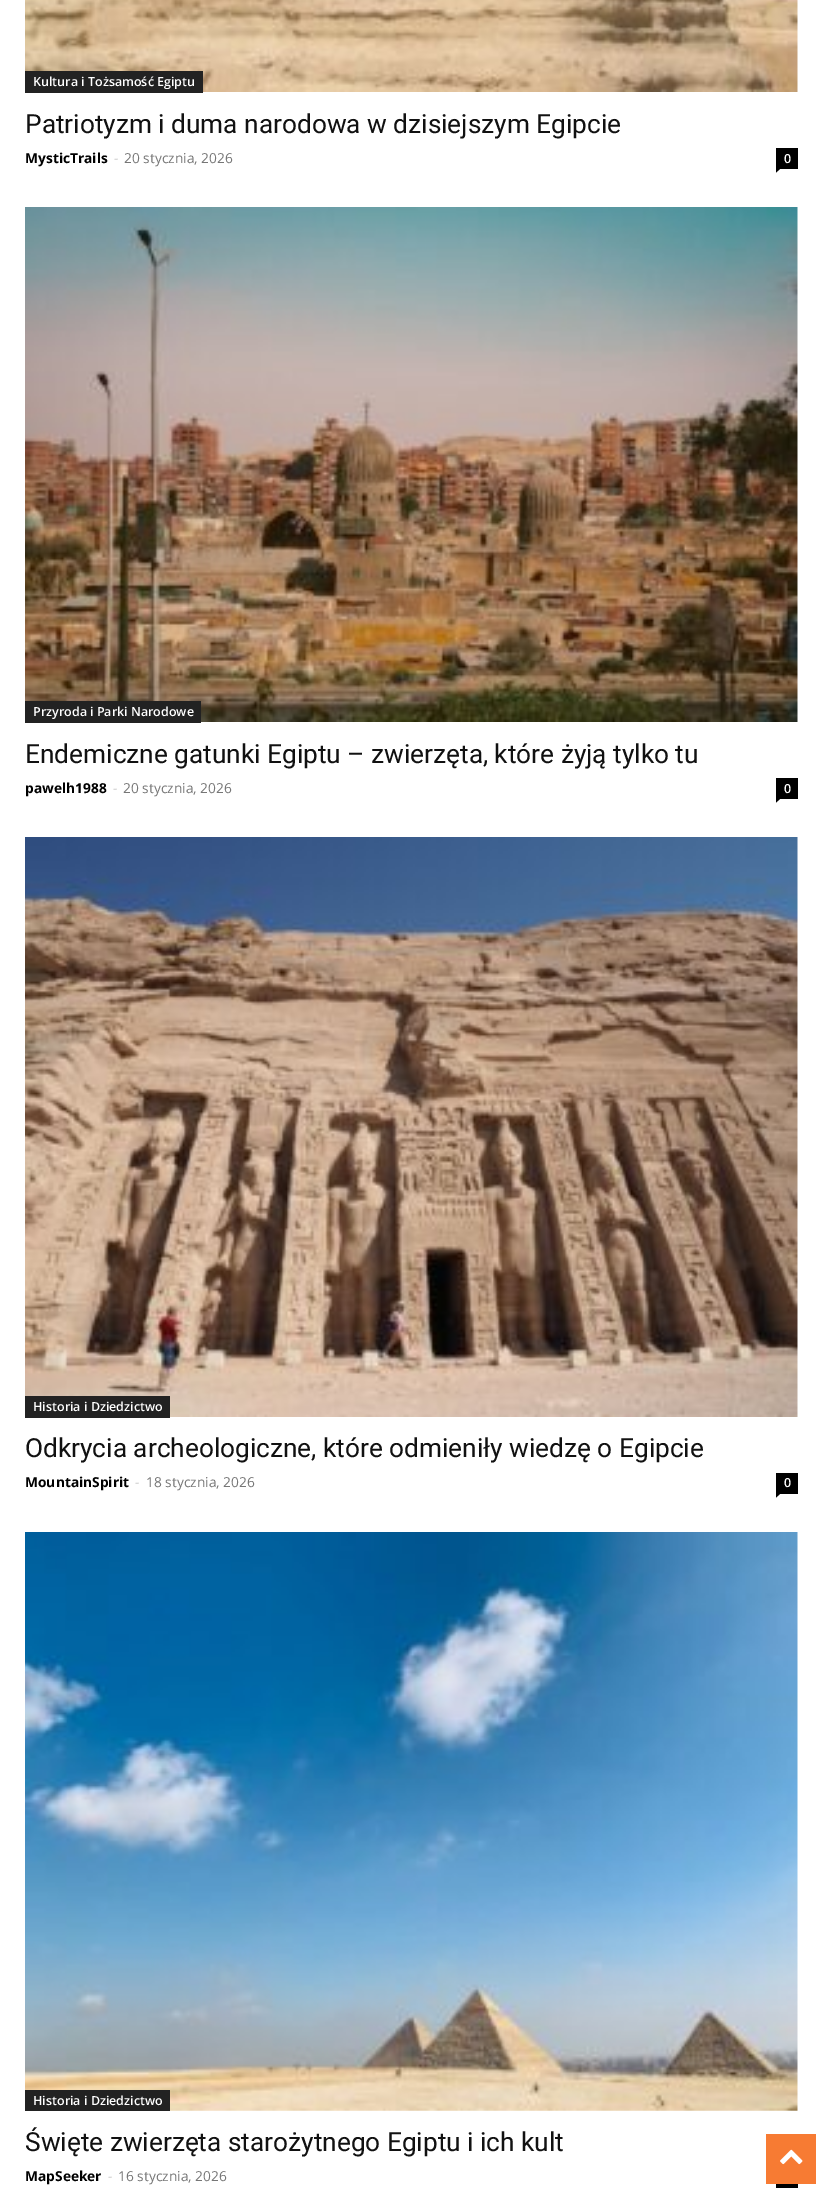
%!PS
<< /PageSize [822 2188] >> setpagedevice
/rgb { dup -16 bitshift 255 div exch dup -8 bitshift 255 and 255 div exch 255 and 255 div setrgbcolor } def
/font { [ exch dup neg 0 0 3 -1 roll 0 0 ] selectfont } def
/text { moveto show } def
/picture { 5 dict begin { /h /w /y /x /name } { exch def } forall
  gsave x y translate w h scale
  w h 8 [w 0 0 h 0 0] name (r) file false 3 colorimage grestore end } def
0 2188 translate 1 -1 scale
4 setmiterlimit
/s1 { /OpenSans-SemiBold 12.5 font 16#FFFFFF rgb } def
/s2 { /Roboto-Regular 26.25 font 16#111111 rgb } def
/s3 { /OpenSans-Bold 13.75 font 16#000000 rgb } def
/s4 { /OpenSans-Regular 13.75 font 16#CCCCCC rgb } def
/s5 { /OpenSans-Regular 13.75 font 16#767676 rgb } def
16#FFFFFF rgb
0 0 822 2188 rectfill
(pic1.raw) 25 0 773 92 picture
16#222222 rgb
25 71 178 22 rectfill
s1
(Kultura i Tożsamość Egiptu) 33 86 text
s2
(Patriotyzm i duma narodowa w dzisiejszym Egipcie) 25 133 text
s3
(MysticTrails) 25 163 text
s4
(-) 114 163 text
s5
(20 stycznia, 2026) 124 163 text
16#000000 rgb
776 148 22 21 rectfill
s1
(0) 784 163 text
16#000000 rgb
776 169 moveto 780 169 lineto 776 172.5 lineto closepath fill
(pic2.raw) 25 207 773 515 picture
16#222222 rgb
25 701 176 22 rectfill
s1
(Przyroda i Parki Narodowe) 33 716 text
s2
(Endemiczne gatunki Egiptu – zwierzęta, które żyją tylko tu) 25 763 text
s3
(pawelh1988) 25 793 text
s4
(-) 113 793 text
s5
(20 stycznia, 2026) 123 793 text
16#000000 rgb
776 778 22 21 rectfill
s1
(0) 784 793 text
16#000000 rgb
776 799 moveto 780 799 lineto 776 802.5 lineto closepath fill
(pic3.raw) 25 837 773 580 picture
16#222222 rgb
25 1396 145 22 rectfill
s1
(Historia i Dziedzictwo) 33 1411 text
s2
(Odkrycia archeologiczne, które odmieniły wiedzę o Egipcie) 25 1457 text
s3
(MountainSpirit) 25 1487 text
s4
(-) 135 1487 text
s5
(18 stycznia, 2026) 146 1487 text
16#000000 rgb
776 1473 22 21 rectfill
s1
(0) 784 1487 text
16#000000 rgb
776 1494 moveto 780 1494 lineto 776 1497.5 lineto closepath fill
(pic4.raw) 25 1532 773 579 picture
16#222222 rgb
25 2090 145 21 rectfill
s1
(Historia i Dziedzictwo) 33 2105 text
s2
(Święte zwierzęta starożytnego Egiptu i ich kult) 25 2151 text
s3
(MapSeeker) 25 2181 text
s4
(-) 108 2181 text
s5
(16 stycznia, 2026) 118 2181 text
16#000000 rgb
776 2184 22 4 rectfill
16#F77B33 rgb
766 2134 50 50 rectfill
(pic5.raw) 780 2149 23 16 picture
showpage
